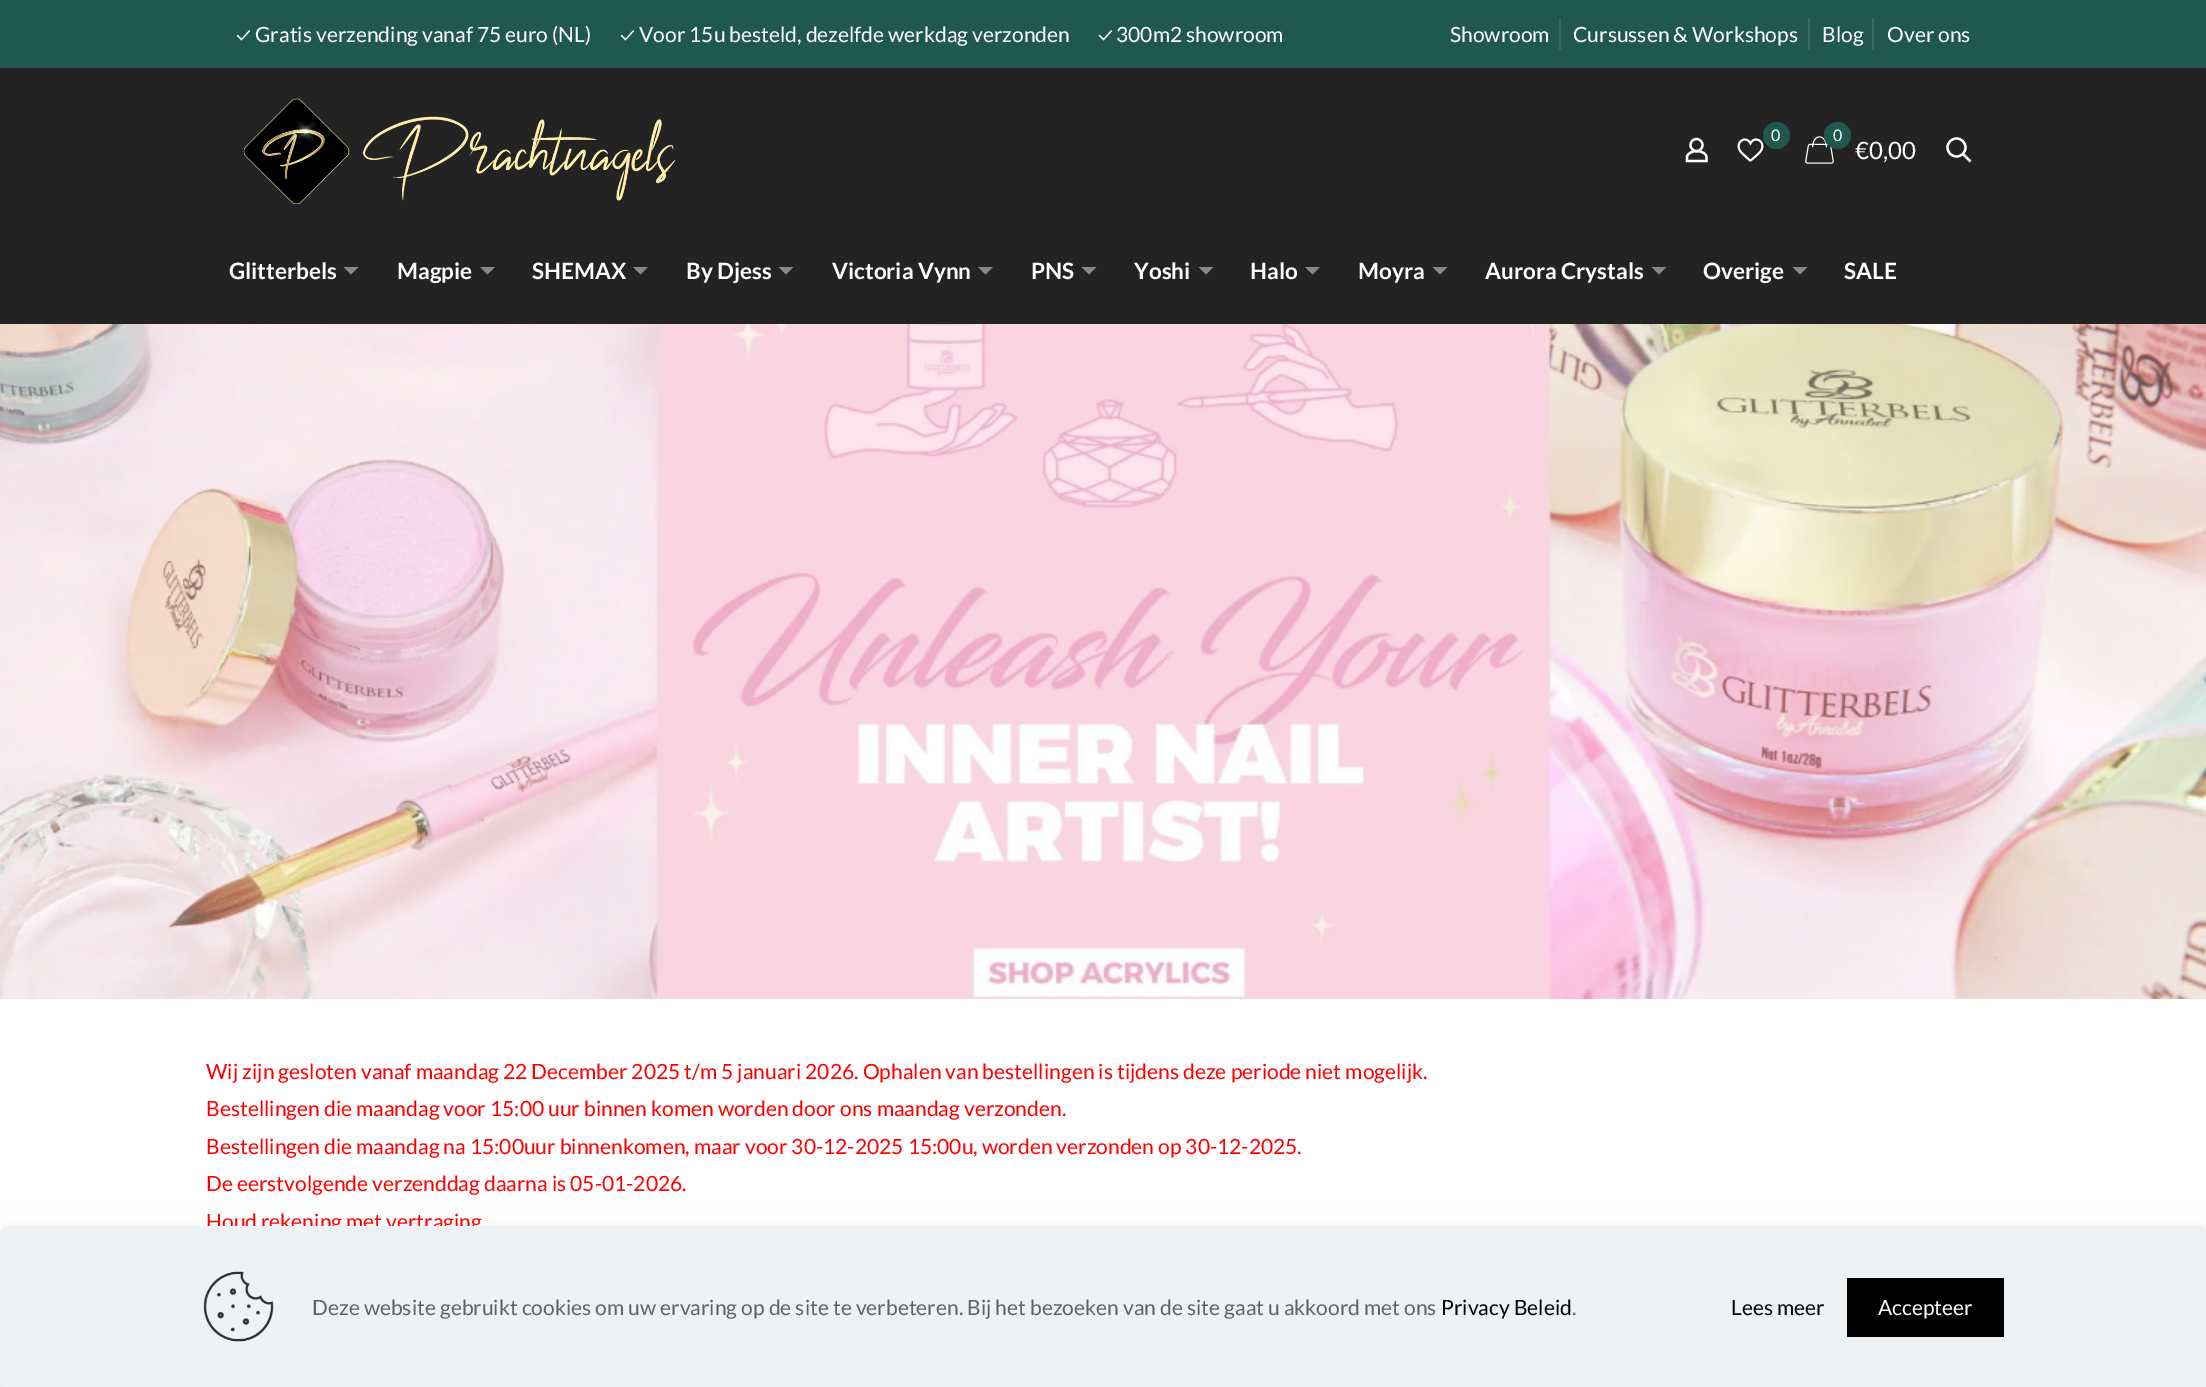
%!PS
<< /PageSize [2206 1387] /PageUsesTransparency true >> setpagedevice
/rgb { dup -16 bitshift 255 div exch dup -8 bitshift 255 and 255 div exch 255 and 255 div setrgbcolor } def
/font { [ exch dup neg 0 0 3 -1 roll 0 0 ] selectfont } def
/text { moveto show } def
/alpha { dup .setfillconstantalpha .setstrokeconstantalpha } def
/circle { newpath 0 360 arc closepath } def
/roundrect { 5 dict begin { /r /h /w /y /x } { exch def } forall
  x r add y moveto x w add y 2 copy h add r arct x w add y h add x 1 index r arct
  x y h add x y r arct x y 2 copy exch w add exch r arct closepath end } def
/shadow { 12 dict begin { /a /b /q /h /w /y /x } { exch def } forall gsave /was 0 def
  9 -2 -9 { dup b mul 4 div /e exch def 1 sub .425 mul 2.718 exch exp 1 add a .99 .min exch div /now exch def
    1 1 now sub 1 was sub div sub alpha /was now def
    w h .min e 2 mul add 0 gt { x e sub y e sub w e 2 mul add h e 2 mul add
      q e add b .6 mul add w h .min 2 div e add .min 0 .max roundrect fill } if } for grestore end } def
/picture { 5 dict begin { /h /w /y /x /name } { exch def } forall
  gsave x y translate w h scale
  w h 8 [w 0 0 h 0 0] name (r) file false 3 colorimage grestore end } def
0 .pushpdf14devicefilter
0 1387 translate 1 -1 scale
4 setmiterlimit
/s1 { /Ubuntu-Regular 21 font 16#FFFFFF rgb } def
/s2 { /Lato-Regular 21 font 16#FFFFFF rgb } def
/s3 { /Lato-Regular 16 font 16#FFFFFF rgb } def
/s4 { /Lato-Regular 24 font 16#FFFFFF rgb } def
/s5 { /Lato-Bold 22.5 font 16#FFFFFF rgb } def
/s6 { /Lato-Regular 21 font 16#FF0000 rgb } def
/s7 { /Lato-Regular 21 font 16#626262 rgb } def
/s8 { /Lato-Regular 21 font 16#000000 rgb } def
16#FFFFFF rgb
0 0 2206 1387 rectfill
16#20584F rgb
0 0 2206 68 rectfill
s1
(✓) 236 42 text
s2
(Gratis verzending vanaf 75 euro \(NL\)) 255 42 text
s1
(✓) 620 42 text
s2
(Voor 15u besteld, dezelfde werkdag verzonden) 639 42 text
s1
(✓) 1098 42 text
s2
(300m2 showroom) 1116 42 text
16#366961 rgb
1559 18 2 32 rectfill
s2
(Showroom) 1450 42 text
16#366961 rgb
1808 18 2 32 rectfill
s2
(Cursussen & Workshops) 1573 42 text
16#366961 rgb
1872 18 2 32 rectfill
s2
(Blog) 1822 42 text
(Over ons) 1887 42 text
16#232323 rgb
0 68 2206 256 rectfill
(pic1.raw) 243 98 433 107 picture
16#FFFFFF rgb
2.2 setlinewidth
1696.5 145 6 circle stroke
1706.5 157.5 moveto 1706.5 161 lineto 1687 161 lineto 1687 156.5 lineto 1689 149 1706.5 149.5 1706.5 157.5 curveto closepath stroke
(pic2.raw) 1737 138 27 24 picture
16#20584F rgb
1776.5 135.5 13.5 circle fill
s3
(0) 1771 141 text
(pic3.raw) 1805 136 29 28 picture
16#20584F rgb
1837.5 135.5 13.5 circle fill
s3
(0) 1833 141 text
s4
(€0,00) 1855 159 text
1956.5 147.5 9 circle stroke
1963 154 moveto 1970.5 161.5 lineto stroke
s5
(Glitterbels) 229 279 text
16#888888 rgb
343.5 267 moveto 358.5 267 lineto 351 274.5 lineto closepath fill
s5
(Magpie) 397 279 text
16#888888 rgb
480 267 moveto 495 267 lineto 487.5 274.5 lineto closepath fill
s5
(SHEMAX) 532 279 text
16#888888 rgb
633 267 moveto 648 267 lineto 640.5 274.5 lineto closepath fill
s5
(By Djess) 686 279 text
16#888888 rgb
778.5 267 moveto 793.5 267 lineto 786 274.5 lineto closepath fill
s5
(Victoria Vynn) 832 279 text
16#888888 rgb
978 267 moveto 993 267 lineto 985.5 274.5 lineto closepath fill
s5
(PNS) 1031 279 text
16#888888 rgb
1081.5 267 moveto 1096.5 267 lineto 1089 274.5 lineto closepath fill
s5
(Yoshi) 1134 279 text
16#888888 rgb
1198.5 267 moveto 1213.5 267 lineto 1206 274.5 lineto closepath fill
s5
(Halo) 1250 279 text
16#888888 rgb
1305 267 moveto 1320 267 lineto 1312.5 274.5 lineto closepath fill
s5
(Moyra) 1358 279 text
16#888888 rgb
1432.5 267 moveto 1447.5 267 lineto 1440 274.5 lineto closepath fill
s5
(Aurora Crystals) 1485 279 text
16#888888 rgb
1651.5 267 moveto 1666.5 267 lineto 1659 274.5 lineto closepath fill
s5
(Overige) 1703 279 text
16#888888 rgb
1792.5 267 moveto 1807.5 267 lineto 1800 274.5 lineto closepath fill
s5
(SALE) 1844 279 text
(pic4.raw) 0 324 2206 675 picture
s6
(Wij zijn gesloten vanaf maandag 22 December 2025 t/m 5 januari 2026. Ophalen van bestellingen is tijdens deze periode niet mogelijk.) 206 1079 text
(Bestellingen die maandag voor 15:00 uur binnen komen worden door ons maandag verzonden.) 206 1116 text
(Bestellingen die maandag na 15:00uur binnenkomen, maar voor 30-12-2025 15:00u, worden verzonden op 30-12-2025.) 206 1154 text
(De eerstvolgende verzenddag daarna is 05-01-2026.) 206 1191 text
(Houd rekening met vertraging) 206 1229 text
16#010727 rgb
0 1248 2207 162 8 22.5 0.13 shadow
16#EEF2F5 rgb
0 1226 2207 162 8 roundrect fill
(pic5.raw) 203 1271 71 71 picture
s7
(Deze website gebruikt cookies om uw ervaring op de site te verbeteren. Bij het bezoeken van de site gaat u akkoord met ons) 312 1315 text
s8
(Privacy Beleid) 1441 1315 text
s7
(.) 1572 1315 text
s8
(Lees meer) 1731 1315 text
1847 1278 157 59 rectfill
s2
(Accepteer) 1878 1315 text
.poppdf14devicefilter showpage
